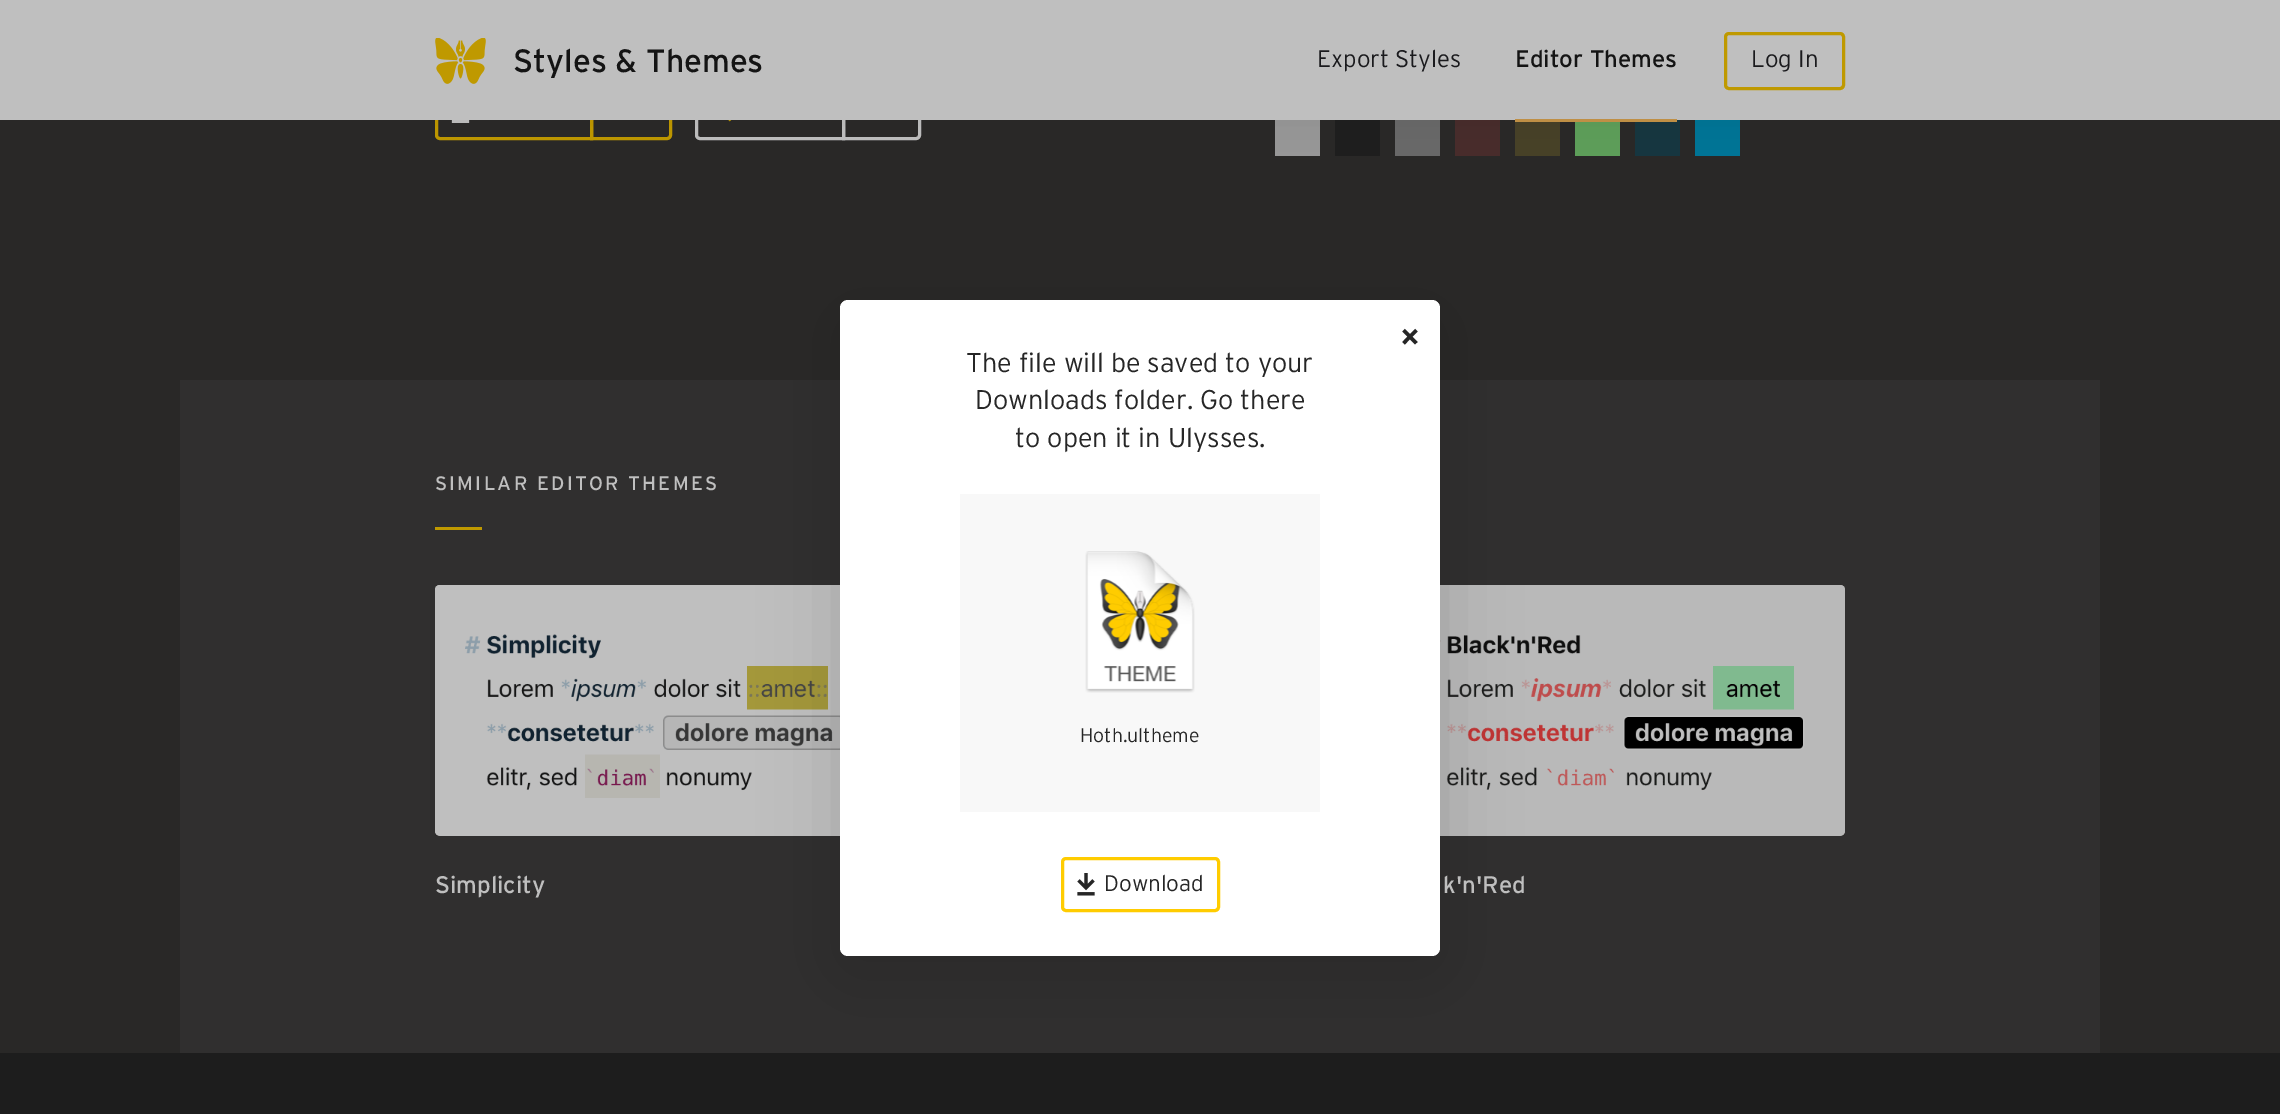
%!PS
<< /PageSize [2280 1114] /PageUsesTransparency true >> setpagedevice
/rgb { dup -16 bitshift 255 div exch dup -8 bitshift 255 and 255 div exch 255 and 255 div setrgbcolor } def
/font { [ exch dup neg 0 0 3 -1 roll 0 0 ] selectfont } def
/text { moveto show } def
/alpha { dup .setfillconstantalpha .setstrokeconstantalpha } def
/roundrect { 5 dict begin { /r /h /w /y /x } { exch def } forall
  x r add y moveto x w add y 2 copy h add r arct x w add y h add x 1 index r arct
  x y h add x y r arct x y 2 copy exch w add exch r arct closepath end } def
/shadow { 12 dict begin { /a /b /q /h /w /y /x } { exch def } forall gsave /was 0 def
  9 -2 -9 { dup b mul 4 div /e exch def 1 sub .425 mul 2.718 exch exp 1 add a .99 .min exch div /now exch def
    1 1 now sub 1 was sub div sub alpha /was now def
    w h .min e 2 mul add 0 gt { x e sub y e sub w e 2 mul add h e 2 mul add
      q e add b .6 mul add w h .min 2 div e add .min 0 .max roundrect fill } if } for grestore end } def
/picture { 5 dict begin { /h /w /y /x /name } { exch def } forall
  gsave x y translate w h scale
  w h 8 [w 0 0 h 0 0] name (r) file false 3 colorimage grestore end } def
0 .pushpdf14devicefilter
0 1114 translate 1 -1 scale
4 setmiterlimit
/s1 { /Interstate-Regular 32.25 font 16#141414 rgb } def
/s2 { /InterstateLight-Light 24 font 16#1A1A1D rgb } def
/s3 { /Interstate-Regular 24 font 16#141414 rgb } def
/s4 { /Roboto-Bold 34 font 16#262626 rgb } def
/s5 { /InterstateLight-Light 27 font 16#262626 rgb } def
/s6 { /InterstateLight-Light 19.5 font 16#262626 rgb } def
/s7 { /InterstateLight-Light 22.5 font 16#262626 rgb } def
/s8 { /Interstate-Regular 24 font 16#BFBFBF rgb } def
16#1D1D1D rgb
0 0 2280 1114 rectfill
16#292827 rgb
0 120 2280 933 rectfill
16#BF9900 rgb
3 setlinewidth
440 85.5 moveto 591.5 85.5 lineto 591.5 138.5 lineto 440 138.5 lineto 438 138.5 436.5 137 436.5 135 curveto 436.5 89 lineto 436.5 87 438 85.5 440 85.5 curveto closepath stroke
(pic4.raw) 451 120 19 3 picture
591.5 85.5 moveto 667 85.5 lineto 669 85.5 670.5 87 670.5 89 curveto 670.5 135 lineto 670.5 137 669 138.5 667 138.5 curveto 591.5 138.5 lineto closepath stroke
16#BFBFBF rgb
700 85.5 moveto 843.5 85.5 lineto 843.5 138.5 lineto 700 138.5 lineto 698 138.5 696.5 137 696.5 135 curveto 696.5 89 lineto 696.5 87 698 85.5 700 85.5 curveto closepath stroke
(pic5.raw) 728 120 4 2 picture
843.5 85.5 moveto 916 85.5 lineto 918 85.5 919.5 87 919.5 89 curveto 919.5 135 lineto 919.5 137 918 138.5 916 138.5 curveto 843.5 138.5 lineto closepath stroke
16#989898 rgb
1275 120 45 36 rectfill
16#1E1E1E rgb
1335 120 45 36 rectfill
16#686868 rgb
1395 120 45 36 rectfill
16#482C2B rgb
1455 120 45 36 rectfill
16#474127 rgb
1515 122 45 34 rectfill
16#5D9F59 rgb
1575 122 45 34 rectfill
16#163640 rgb
1635 120 45 36 rectfill
16#007497 rgb
1695 120 45 36 rectfill
16#000000 rgb
0 0 2280 120 0 25.5 0.06 shadow
16#BFBFBF rgb
0 0 2280 120 rectfill
(pic1.raw) 435 38 51 46 picture
s1
(Styles & Themes) 513 72 text
s2
(Export Styles) 1317 67 text
s3
(Editor Themes) 1515 67 text
16#BF8F45 rgb
1515 119 162 3 rectfill
16#BF9900 rgb
1725.5 33.5 118 55 3.5 roundrect stroke
s2
(Log In) 1751 67 text
16#302F2F rgb
180 380 1920 673 rectfill
16#BFBFBF rgb
435 585 450 251 5 roundrect fill
(pic6.raw) 435 585 405 251 picture
16#B9B9B9 rgb
1395 585 450 251 5 roundrect fill
(pic7.raw) 1440 585 405 251 picture
16#000000 rgb
840 315 600 656 8 37.5 0.15 shadow
16#FFFFFF rgb
840 300 600 656 8 roundrect fill
s4
(×) 1401 348 text
s5
(The file will be saved to your) 966 372 text
(Downloads folder. Go there) 975 409 text
(to open it in Ulysses.) 1015 447 text
16#F8F8F8 rgb
960 494 360 318 rectfill
(pic2.raw) 1085 551 110 142 picture
s6
(Hoth.ultheme) 1080 742 text
16#FFCC00 rgb
1062.5 858.5 156 52 3.5 roundrect stroke
(pic3.raw) 1077 873 18 23 picture
s7
(Download) 1104 891 text
/Interstate-Regular 19.5 font
16#BFBFBF rgb
435 490 moveto 2.25 0 (SIMILAR EDITOR THEMES) ashow
16#BF9900 rgb
435 527 47 3 rectfill
s8
(Simplicity) 435 893 text
(k'n'Red) 1443 893 text
.poppdf14devicefilter showpage
